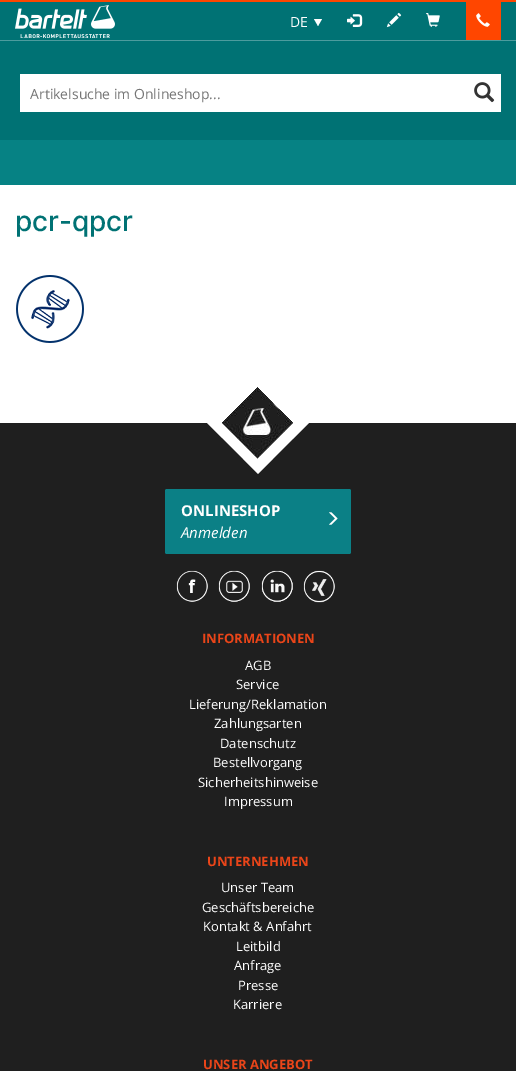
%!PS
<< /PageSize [516 1071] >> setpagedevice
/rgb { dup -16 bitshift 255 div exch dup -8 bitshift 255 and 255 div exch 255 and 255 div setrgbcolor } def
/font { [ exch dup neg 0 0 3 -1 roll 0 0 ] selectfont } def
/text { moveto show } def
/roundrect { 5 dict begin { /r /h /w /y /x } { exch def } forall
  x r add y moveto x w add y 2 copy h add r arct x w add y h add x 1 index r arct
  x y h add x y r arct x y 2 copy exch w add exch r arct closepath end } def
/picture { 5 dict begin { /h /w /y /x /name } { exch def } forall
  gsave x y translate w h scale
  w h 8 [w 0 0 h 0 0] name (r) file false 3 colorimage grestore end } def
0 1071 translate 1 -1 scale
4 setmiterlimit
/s1 { /OpenSans-Regular 14 font 16#FFFFFF rgb } def
/s2 { /OpenSans-Regular 14 font 16#757575 rgb } def
/s3 { /Inter-Medium 28 font 16#007274 rgb } def
/s4 { /OpenSans-Bold 15 font 16#FFFFFF rgb } def
/s5 { /OpenSans-Italic 15 font 16#FFFFFF rgb } def
/s6 { /OpenSans-Bold 13 font 16#EA4519 rgb } def
/s7 { /OpenSans-Regular 13 font 16#FFFFFF rgb } def
16#FFFFFF rgb
0 0 516 1071 rectfill
16#FF4600 rgb
0 0 516 2 rectfill
16#007274 rgb
0 2 516 138 rectfill
s1
(DE) 290 27 text
314 19 moveto 322 19 lineto 318 26 lineto closepath fill
(pic1.raw) 347 14 16 13 picture
(pic2.raw) 386 12 16 16 picture
(pic3.raw) 426 13 14 14 picture
16#FF4600 rgb
466 2 35 38 rectfill
(pic4.raw) 476 13 14 14 picture
(pic5.raw) 15 5 100 33 picture
16#FFFFFF rgb
20 74 481 38 rectfill
s2
(Artikelsuche im Onlineshop...) 30 99 text
(pic6.raw) 474 82 21 21 picture
16#4D9C9E rgb
0 40 516 1 rectfill
16#068284 rgb
0 140 516 45 rectfill
s3
(pcr-qpcr) 15 231 text
(pic7.raw) 16 275 68 68 picture
16#1F1F1F rgb
0 423 516 648 rectfill
16#FFFFFF rgb
258 372 moveto 309 423 lineto 258 474 lineto 207 423 lineto closepath fill
(pic8.raw) 222 387 71 72 picture
16#0B8086 rgb
165 489 186 65 2 roundrect fill
s4
(ONLINESHOP) 181 516 text
(pic9.raw) 329 512 9 13 picture
s5
(Anmelden) 181 538 text
(pic10.raw) 176 570 32 32 picture
(pic11.raw) 218 570 32 32 picture
(pic12.raw) 261 570 32 32 picture
(pic13.raw) 303 570 32 33 picture
s6
(INFORMATIONEN) 202 643 text
s7
(AGB) 245 670 text
(Service) 236 689 text
(Lieferung/Reklamation) 189 709 text
(Zahlungsarten) 214 728 text
(Datenschutz) 220 748 text
(Bestellvorgang) 213 767 text
(Sicherheitshinweise) 198 787 text
(Impressum) 224 806 text
s6
(UNTERNEHMEN) 207 866 text
s7
(Unser Team) 221 892 text
(Geschäftsbereiche) 202 912 text
(Kontakt & Anfahrt) 203 931 text
(Leitbild) 236 951 text
(Anfrage) 234 970 text
(Presse) 238 990 text
(Karriere) 233 1009 text
s6
(UNSER ANGEBOT) 203 1069 text
showpage
